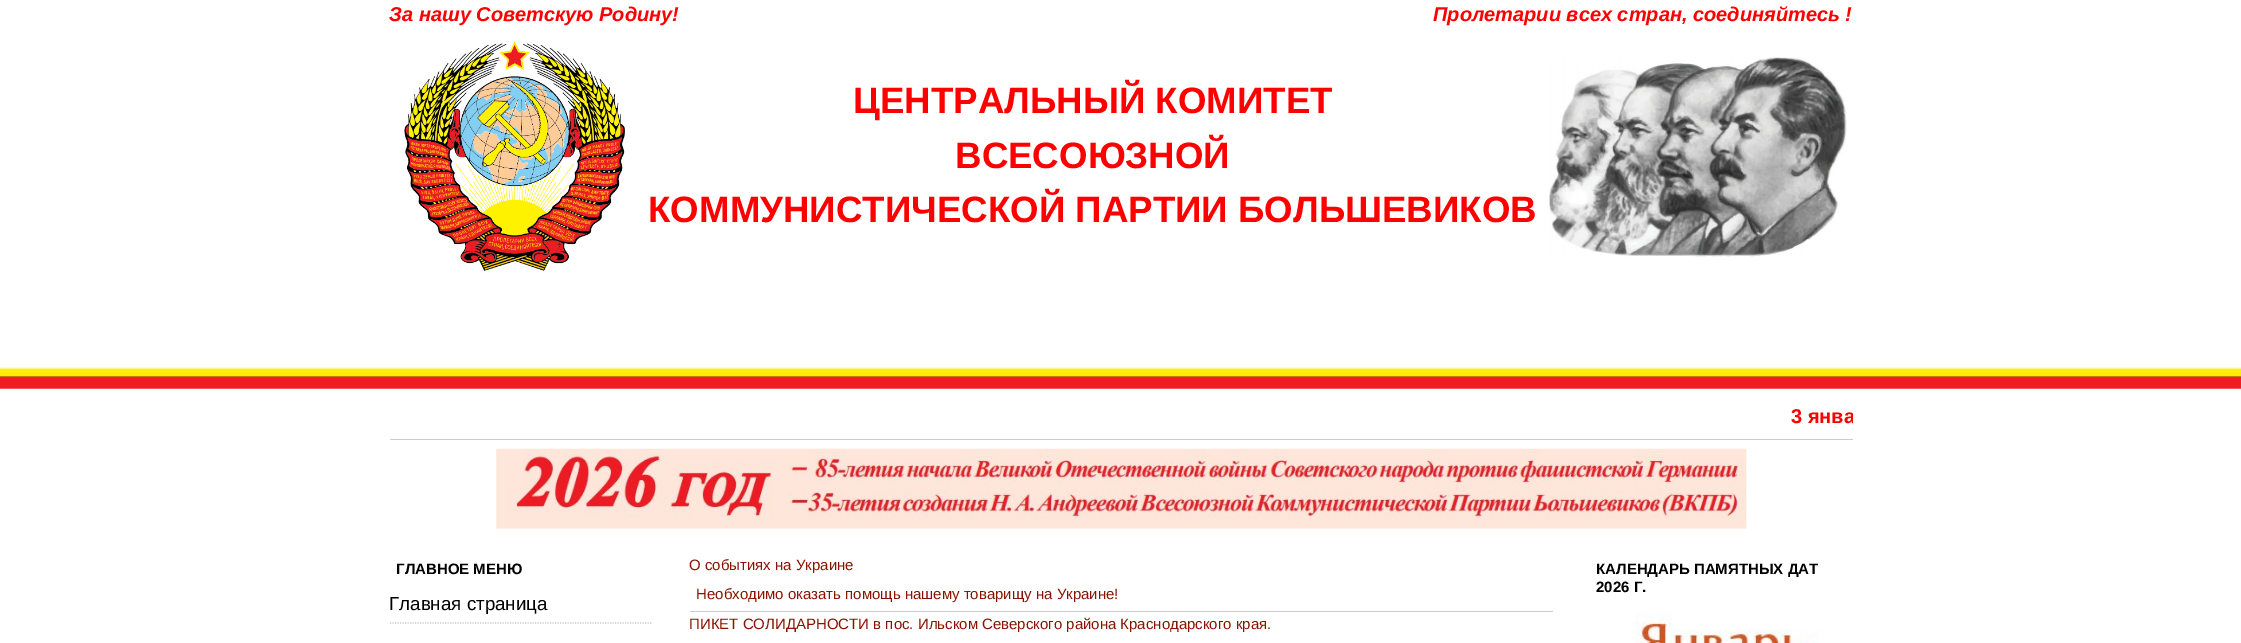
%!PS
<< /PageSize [2241 643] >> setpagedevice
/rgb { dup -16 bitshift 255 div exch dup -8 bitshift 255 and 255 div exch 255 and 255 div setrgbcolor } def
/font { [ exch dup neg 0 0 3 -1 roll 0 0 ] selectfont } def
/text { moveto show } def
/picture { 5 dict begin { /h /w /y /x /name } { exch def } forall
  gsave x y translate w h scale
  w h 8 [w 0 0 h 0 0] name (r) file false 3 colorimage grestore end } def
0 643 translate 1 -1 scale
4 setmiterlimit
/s1 { /LiberationSans-BoldItalic 20 font 16#FF0000 rgb } def
/s2 { /LiberationSans-Bold 36.7 font 16#FF0000 rgb } def
/s3 { /LiberationSans-Bold 20 font 16#FF0000 rgb } def
/s4 { /LiberationSans-Bold 15 font 16#000000 rgb } def
/s5 { /LiberationSans-Regular 18.75 font 16#000000 rgb } def
/s6 { /LiberationSans-Regular 15 font 16#881300 rgb } def
16#FFFFFF rgb
0 0 2241 643 rectfill
s1
(За нашу Советскую Родину!) 389 21 text
(Пролетарии всех стран, соединяйтесь !) 1433 21 text
(pic1.raw) 404 41 221 230 picture
s2
(ЦЕНТРАЛЬНЫЙ КОМИТЕТ) 853 113 text
(ВСЕСОЮЗНОЙ) 955 168 text
(КОММУНИСТИЧЕСКОЙ ПАРТИИ БОЛЬШЕВИКОВ) 648 222 text
(pic2.raw) 1549 57 298 200 picture
(pic3.raw) 0 365 2241 24 picture
gsave
390 401 1463 30 rectclip
s3
(3 янва) 1791 423 text
grestore
16#CCCCCC rgb
390 439 1463 1 rectfill
(pic4.raw) 496 448 1251 81 picture
s4
(ГЛАВНОЕ МЕНЮ) 396 574 text
16#CCCCCC rgb
1.2 setlinewidth
[1.25 1.25] 0 setdash
390 623 moveto 652.5 623 lineto stroke
s5
(Главная страница) 389 610 text
s6
(О событиях на Украине) 689 570 text
16#CCCCCC rgb
690 611 863 1 rectfill
s6
(Необходимо оказать помощь нашему товарищу на Украине!) 696 599 text
(ПИКЕТ СОЛИДАРНОСТИ в пос. Ильском Северского района Краснодарского края.) 689 629 text
s4
(КАЛЕНДАРЬ ПАМЯТНЫХ ДАТ) 1596 574 text
(2026 Г.) 1596 592 text
(pic5.raw) 1635 612 184 31 picture
showpage
